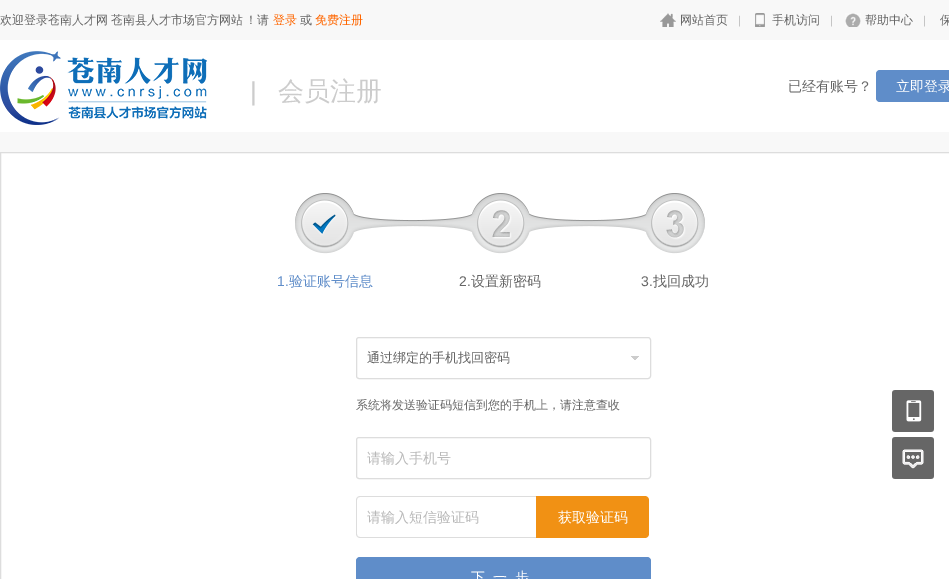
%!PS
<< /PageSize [949 579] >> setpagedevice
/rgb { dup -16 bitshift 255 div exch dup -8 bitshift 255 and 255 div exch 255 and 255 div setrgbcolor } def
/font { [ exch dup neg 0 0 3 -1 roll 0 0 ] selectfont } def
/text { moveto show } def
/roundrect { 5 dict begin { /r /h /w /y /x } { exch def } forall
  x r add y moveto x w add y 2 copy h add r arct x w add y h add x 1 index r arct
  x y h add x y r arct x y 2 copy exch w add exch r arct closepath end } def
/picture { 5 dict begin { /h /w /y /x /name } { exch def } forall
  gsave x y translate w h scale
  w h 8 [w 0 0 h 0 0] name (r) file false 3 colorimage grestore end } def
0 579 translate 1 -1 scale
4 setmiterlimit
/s1 { /WenQuanYiZenHei-Medium 12 font 16#FF6600 rgb } def
/s2 { /WenQuanYiZenHei-Medium 12 font 16#666666 rgb } def
/s3 { /LiberationSerif-Regular 12 font 16#999999 rgb } def
/s4 { /LiberationSans-Regular 26 font 16#CCCCCC rgb } def
/s5 { /WenQuanYiZenHei-Medium 26 font 16#CCCCCC rgb } def
/s6 { /WenQuanYiZenHei-Medium 14 font 16#666666 rgb } def
/s7 { /WenQuanYiZenHei-Medium 14 font 16#FFFFFF rgb } def
/s8 { /LiberationSans-Regular 14 font 16#5F8DC9 rgb } def
/s9 { /WenQuanYiZenHei-Medium 14 font 16#5F8DC9 rgb } def
/s10 { /LiberationSans-Regular 14 font 16#666666 rgb } def
/s11 { /WenQuanYiZenHei-Medium 13 font 16#666666 rgb } def
/s12 { /WenQuanYiZenHei-Medium 14 font 16#B9B9B9 rgb } def
16#F8F8F8 rgb
0 0 949 579 rectfill
/WenQuanYiZenHei-Medium 12 font
16#666666 rgb
0 24 moveto -1 0 32 (欢迎登录苍南人才网 苍南县人才市场官方网站 ！请) widthshow
s1
(登录) 273 24 text
s2
(或) 300 24 text
s1
(免费注册) 315 24 text
(pic1.raw) 660 13 16 14 picture
s2
(网站首页) 680 24 text
s3
(|) 738 24 text
(pic2.raw) 755 13 10 14 picture
s2
(手机访问) 772 24 text
s3
(|) 830 24 text
(pic3.raw) 845 13 16 14 picture
s2
(帮助中心) 865 24 text
s3
(|) 923 24 text
s2
(保) 940 24 text
16#FFFFFF rgb
0 40 949 92 rectfill
(pic4.raw) 0 51 207 74 picture
s4
(|) 250 100 text
s5
(会员注册) 278 100 text
s6
(已经有账号？) 788 91 text
16#5F8DC9 rgb
876 70 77 32 4 roundrect fill
s7
(立即登录) 896 91 text
0.5 152.5 moveto 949.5 152.5 lineto 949.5 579.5 lineto 0.5 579.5 lineto closepath gsave fill grestore
16#DDDDDD rgb
stroke
(pic5.raw) 295 193 410 61 picture
s8
(1.) 277 286 text
s9
(验证账号信息) 289 286 text
s10
(2.) 459 286 text
s6
(设置新密码) 471 286 text
s10
(3.) 641 286 text
s6
(找回成功) 653 286 text
(pic6.raw) 631 356 8 4 picture
16#DDDDDD rgb
356.5 337.5 294 41 2.5 roundrect stroke
s11
(通过绑定的手机找回密码) 367 362 text
s2
(系统将发送验证码短信到您的手机上，请注意查收) 356 409 text
16#DDDDDD rgb
356.5 437.5 294 41 2.5 roundrect stroke
s12
(请输入手机号) 367 463 text
gsave
356 496 180 42 rectclip
16#DDDDDD rgb
360 496 moveto 552 496 lineto 552 538 lineto 360 538 lineto 358 538 356 536 356 534 curveto 356 500 lineto 356 498 358 496 360 496 curveto closepath 360 497 moveto 552 497 lineto 552 537 lineto 360 537 lineto 358 537 357 536 357 534 curveto 357 500 lineto 357 498 358 497 360 497 curveto closepath eofill
grestore
(请输入短信验证码) 367 522 text
16#F19114 rgb
536 496 moveto 645 496 lineto 647 496 649 498 649 500 curveto 649 534 lineto 649 536 647 538 645 538 curveto 536 538 lineto closepath fill
s7
(获取验证码) 558 522 text
16#5F8DC9 rgb
356 557 295 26 4 roundrect fill
16#FFFFFF rgb
471 582 moveto 8 0 (下一步) ashow
(pic7.raw) 892 390 42 42 picture
(pic8.raw) 892 437 42 42 picture
showpage
